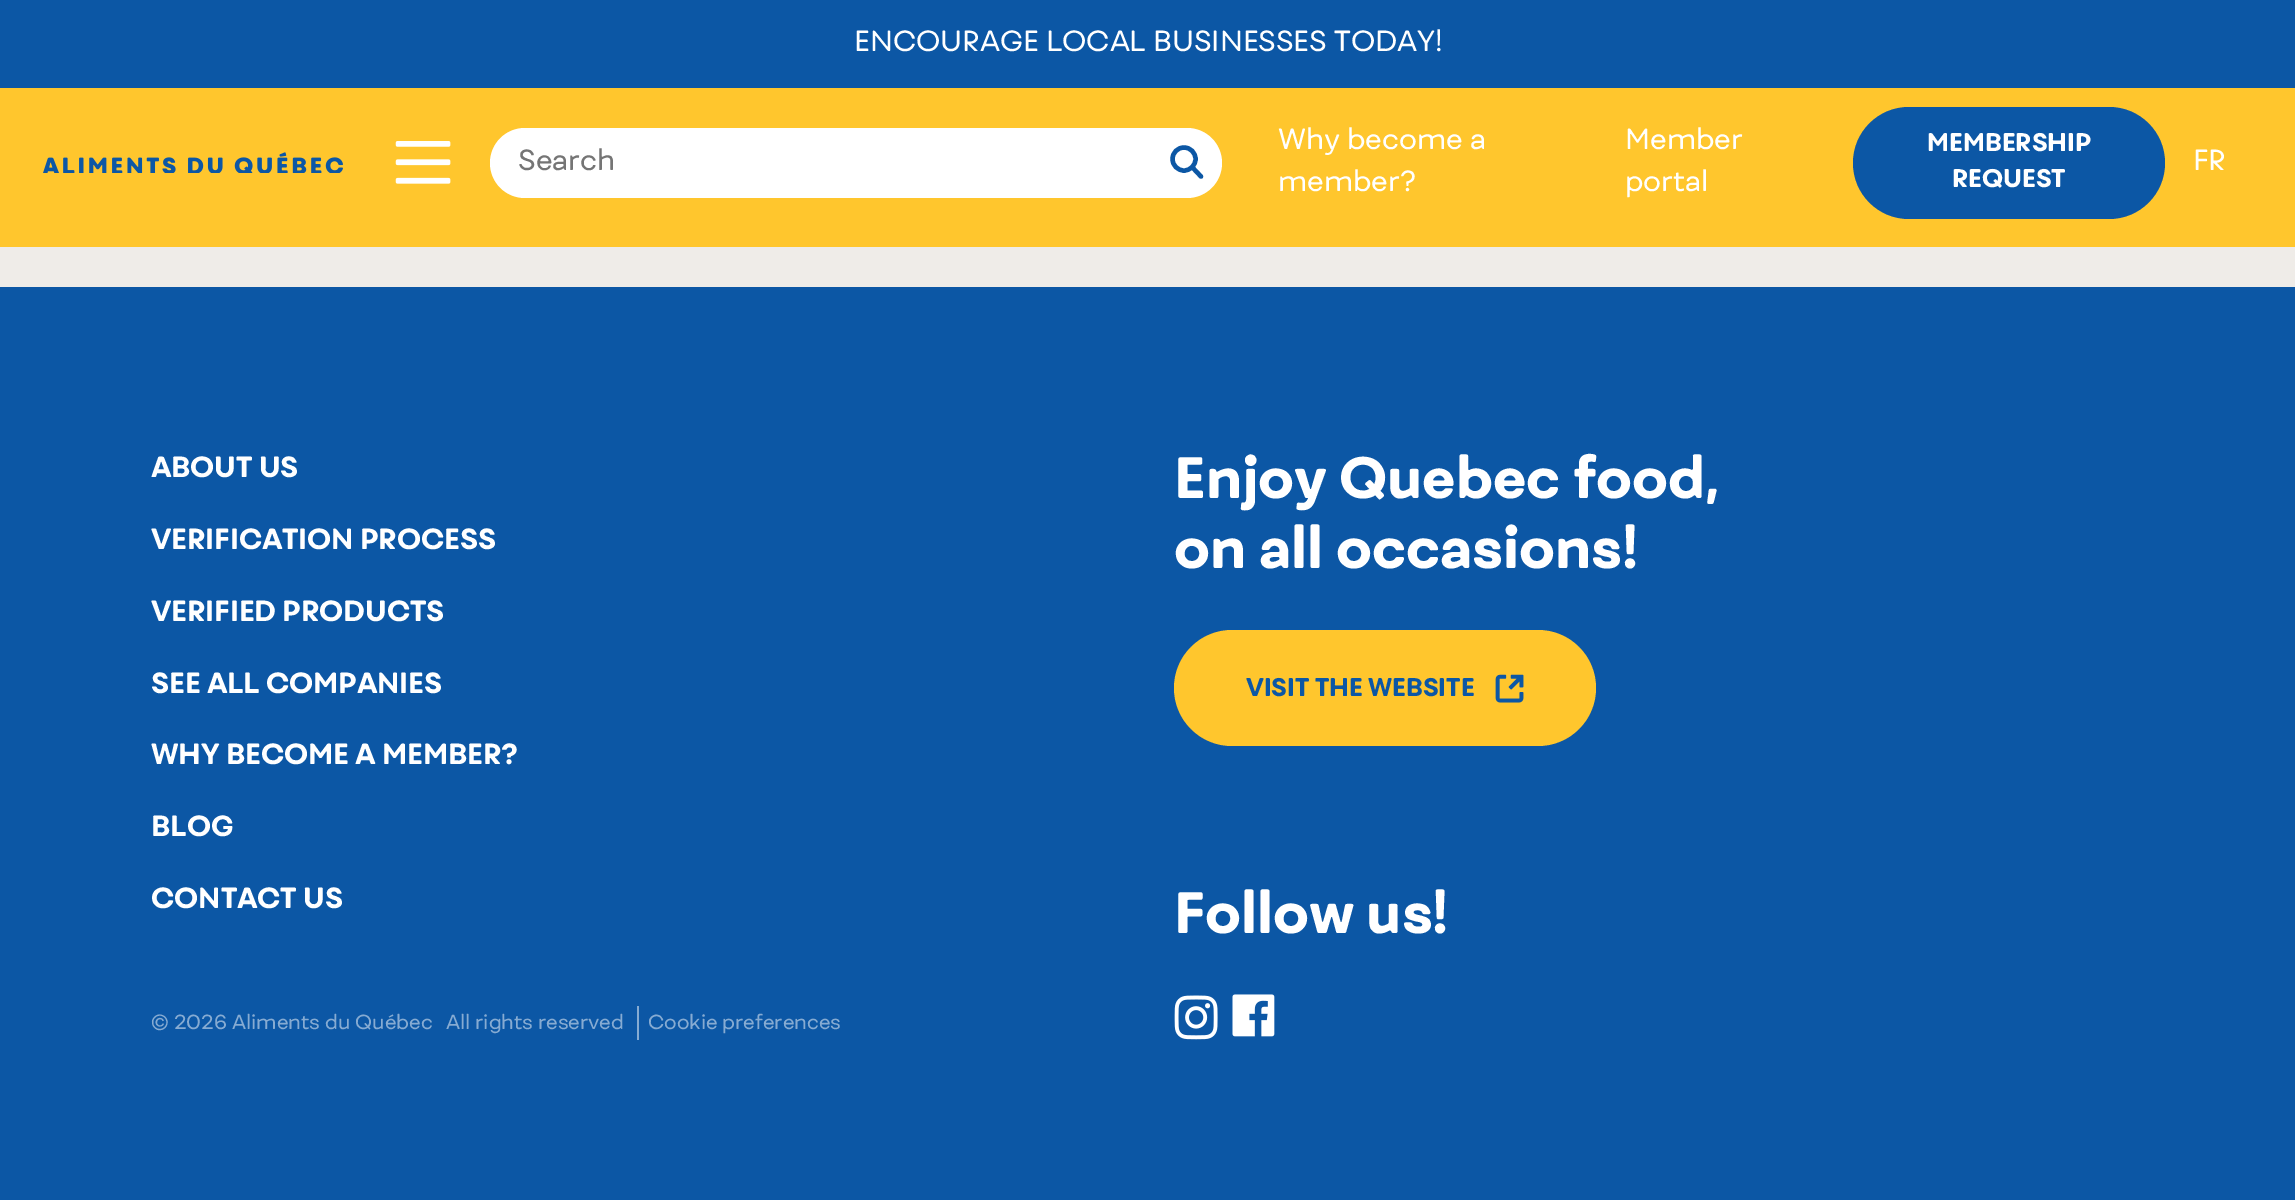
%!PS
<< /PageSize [2295 1200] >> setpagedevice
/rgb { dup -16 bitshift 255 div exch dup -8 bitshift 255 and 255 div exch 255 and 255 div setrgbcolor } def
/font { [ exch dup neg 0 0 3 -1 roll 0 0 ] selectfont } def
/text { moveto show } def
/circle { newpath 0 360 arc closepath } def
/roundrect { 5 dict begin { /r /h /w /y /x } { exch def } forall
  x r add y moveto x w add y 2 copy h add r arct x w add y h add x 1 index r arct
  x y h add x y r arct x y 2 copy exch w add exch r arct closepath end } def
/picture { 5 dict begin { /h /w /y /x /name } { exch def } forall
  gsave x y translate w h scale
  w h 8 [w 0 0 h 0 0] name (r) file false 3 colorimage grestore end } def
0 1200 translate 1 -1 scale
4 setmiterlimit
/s1 { /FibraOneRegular-Regular 28 font 16#FFFFFF rgb } def
/s2 { /FibraOneRegular-Regular 28 font 16#757575 rgb } def
/s3 { /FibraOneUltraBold-Regular 24.5 font 16#FFFFFF rgb } def
/s4 { /FibraOneUltraBold-Regular 28 font 16#FFFFFF rgb } def
/s5 { /FibraOneRegular-Regular 19.6 font 16#86ABD2 rgb } def
/s6 { /FibraOneUltraBold-Regular 56 font 16#FFFFFF rgb } def
/s7 { /FibraOneUltraBold-Regular 24.5 font 16#0C57A5 rgb } def
16#EFECE8 rgb
0 0 2295 1200 rectfill
16#FFC62D rgb
0 88 2295 159 rectfill
16#0C57A5 rgb
0 0 2295 88 rectfill
s1
(ENCOURAGE LOCAL BUSINESSES TODAY!) 854 51 text
(pic1.raw) 43 152 300 21 picture
(pic2.raw) 395 141 56 43 picture
490 128 732 70 35 roundrect fill
s2
(Search) 518 170 text
16#0C57A5 rgb
4.4 setlinewidth
1184 159 11.5 circle stroke
1 setlinecap
1 setlinejoin
1192.5 167.5 moveto 1201 176.5 lineto stroke
s1
(Why become a) 1278 149 text
(member?) 1278 191 text
(Member) 1625 149 text
(portal) 1625 191 text
16#0C57A5 rgb
1853 107 312 112 56 roundrect fill
s3
(MEMBERSHIP) 1927 151 text
(REQUEST) 1952 187 text
s1
(FR) 2193 170 text
16#0C57A5 rgb
0 287 2295 913 rectfill
s4
(ABOUT US) 151 477 text
(VERIFICATION PROCESS) 151 549 text
(VERIFIED PRODUCTS) 151 621 text
(SEE ALL COMPANIES) 151 693 text
(WHY BECOME A MEMBER?) 151 764 text
(BLOG) 151 836 text
(CONTACT US) 151 908 text
s5
(© 2026 Aliments du Québec) 151 1029 text
(All rights reserved) 446 1029 text
637 1006 2 34 rectfill
(Cookie preferences) 648 1029 text
s6
(Enjoy Quebec food,) 1174 498 text
(on all occasions!) 1174 568 text
16#FFC62D rgb
1174 630 422 116 58 roundrect fill
s7
(VISIT THE WEBSITE) 1246 696 text
(pic3.raw) 1495 674 29 29 picture
s6
(Follow us!) 1174 933 text
(pic4.raw) 1174 995 44 45 picture
(pic5.raw) 1232 994 43 43 picture
showpage
